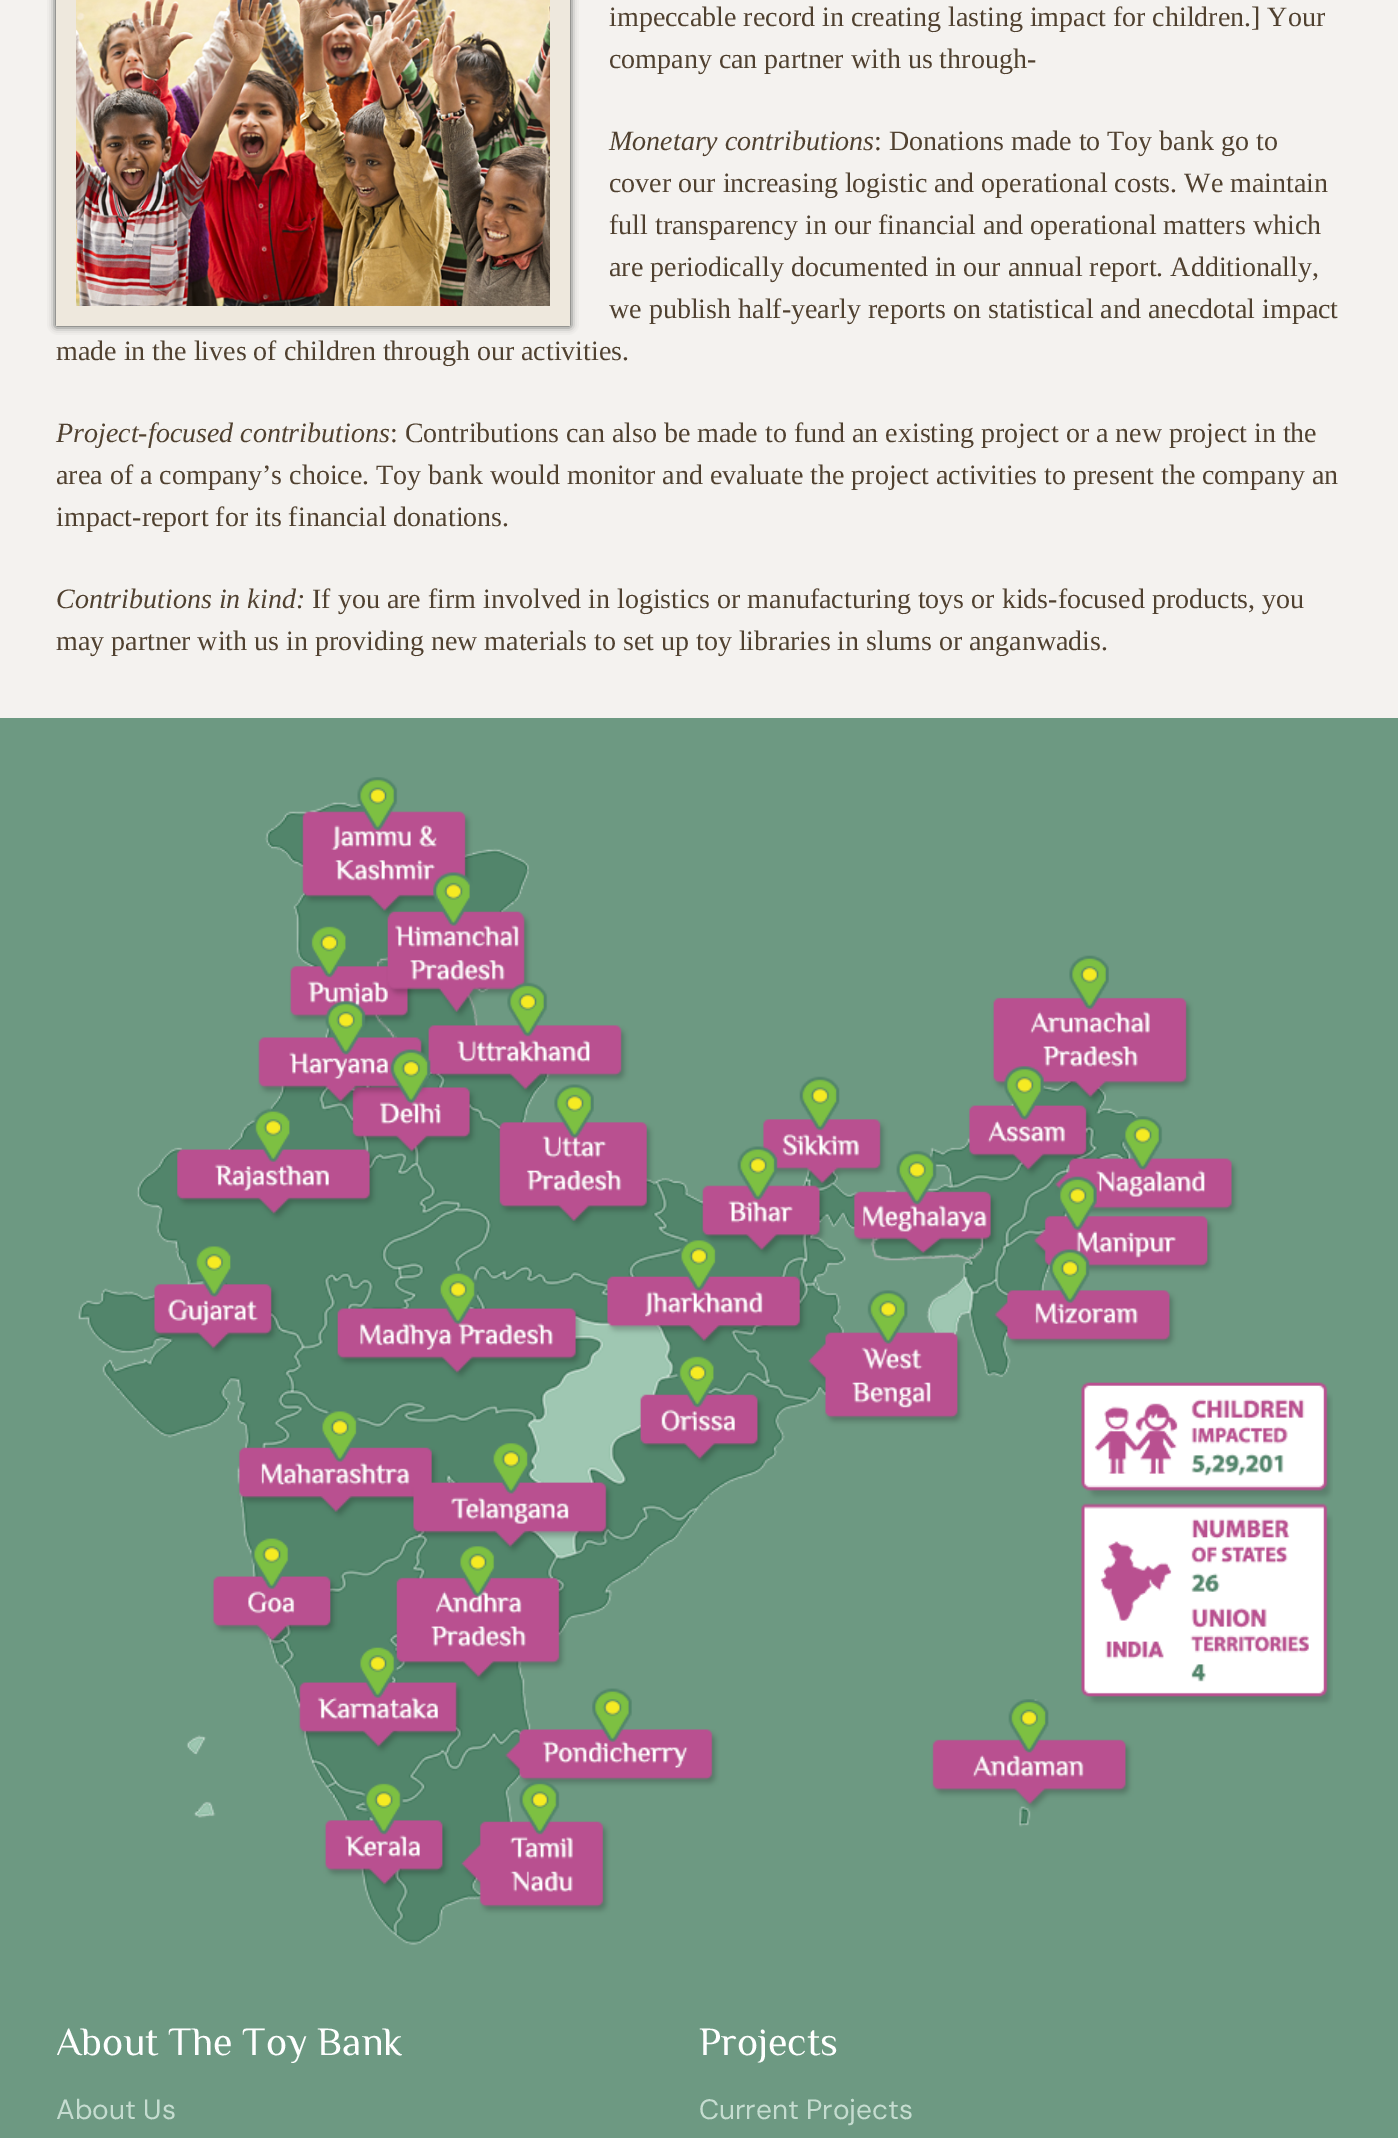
%!PS
<< /PageSize [1398 2138] /PageUsesTransparency true >> setpagedevice
/rgb { dup -16 bitshift 255 div exch dup -8 bitshift 255 and 255 div exch 255 and 255 div setrgbcolor } def
/font { [ exch dup neg 0 0 3 -1 roll 0 0 ] selectfont } def
/text { moveto show } def
/alpha { dup .setfillconstantalpha .setstrokeconstantalpha } def
/roundrect { 5 dict begin { /r /h /w /y /x } { exch def } forall
  x r add y moveto x w add y 2 copy h add r arct x w add y h add x 1 index r arct
  x y h add x y r arct x y 2 copy exch w add exch r arct closepath end } def
/shadow { 12 dict begin { /a /b /q /h /w /y /x } { exch def } forall gsave /was 0 def
  9 -2 -9 { dup b mul 4 div /e exch def 1 sub .425 mul 2.718 exch exp 1 add a .99 .min exch div /now exch def
    1 1 now sub 1 was sub div sub alpha /was now def
    w h .min e 2 mul add 0 gt { x e sub y e sub w e 2 mul add h e 2 mul add
      q e add b .6 mul add w h .min 2 div e add .min 0 .max roundrect fill } if } for grestore end } def
/picture { 5 dict begin { /h /w /y /x /name } { exch def } forall
  gsave x y translate w h scale
  w h 8 [w 0 0 h 0 0] name (r) file false 3 colorimage grestore end } def
0 .pushpdf14devicefilter
0 2138 translate 1 -1 scale
4 setmiterlimit
/s1 { /LiberationSerif-Regular 28 font 16#504130 rgb } def
/s2 { /LiberationSerif-Italic 28 font 16#504130 rgb } def
/s3 { /Philosopher-Regular 40 font 16#FFFFFF rgb } def
/s4 { /DMSans-Regular 28 font 16#C5DCD0 rgb } def
16#F4F2EF rgb
0 0 1398 2138 rectfill
16#333333 rgb
56 -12 514 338 0 4 1 shadow
16#EEE8DD rgb
56 0 514 326 rectfill
(pic1.raw) 76 0 474 306 picture
s1
(impeccable record in creating lasting impact for children.] Your) 609 26 text
(company can partner with us through-) 609 68 text
s2
(Monetary contributions) 609 150 text
s1
(: Donations made to Toy bank go to) 874 150 text
(cover our increasing logistic and operational costs. We maintain) 609 192 text
(full transparency in our financial and operational matters which) 609 234 text
(are periodically documented in our annual report. Additionally,) 609 276 text
(we publish half-yearly reports on statistical and anecdotal impact) 609 318 text
(made in the lives of children through our activities.) 56 360 text
s2
(Project-focused contributions) 56 442 text
s1
(: Contributions can also be made to fund an existing project or a new project in the) 390 442 text
(area of a company’s choice. Toy bank would monitor and evaluate the project activities to present the company an) 56 484 text
(impact-report for its financial donations.) 56 526 text
s2
(Contributions in kind:) 56 608 text
s1
(If you are firm involved in logistics or manufacturing toys or kids-focused products, you) 312 608 text
(may partner with us in providing new materials to set up toy libraries in slums or anganwadis.) 56 650 text
16#6D9982 rgb
0 718 1398 1420 rectfill
(pic2.raw) 78 777 1255 1168 picture
s3
(About The Toy Bank) 56 2055 text
s4
(About Us) 56 2119 text
s3
(Projects) 699 2055 text
s4
(Current Projects) 699 2119 text
.poppdf14devicefilter showpage
